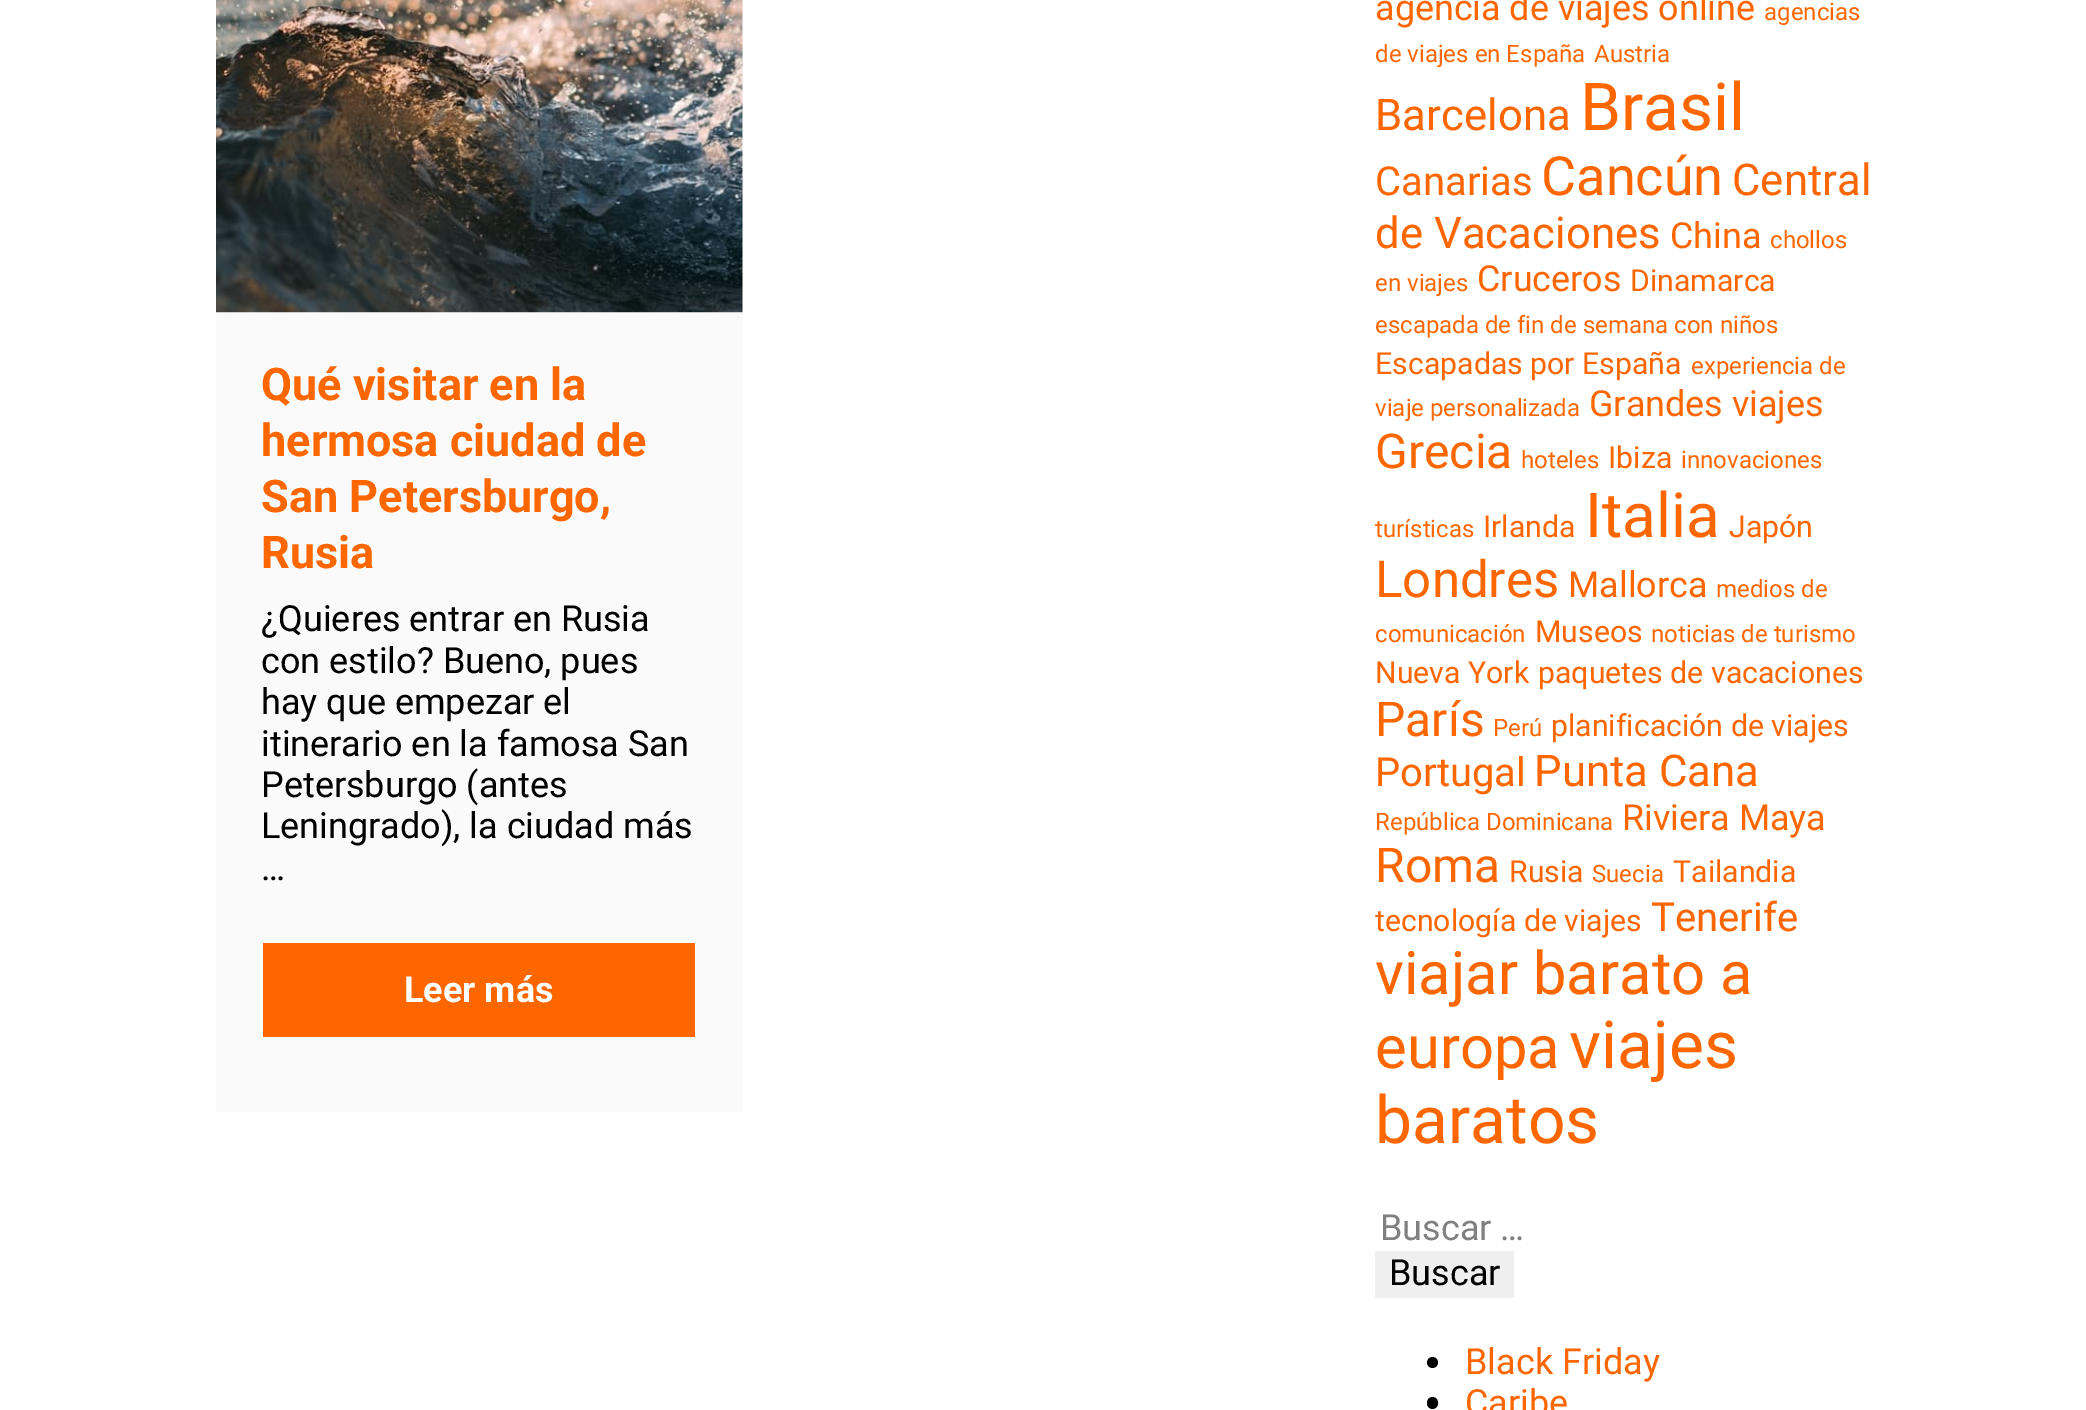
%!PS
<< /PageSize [2086 1410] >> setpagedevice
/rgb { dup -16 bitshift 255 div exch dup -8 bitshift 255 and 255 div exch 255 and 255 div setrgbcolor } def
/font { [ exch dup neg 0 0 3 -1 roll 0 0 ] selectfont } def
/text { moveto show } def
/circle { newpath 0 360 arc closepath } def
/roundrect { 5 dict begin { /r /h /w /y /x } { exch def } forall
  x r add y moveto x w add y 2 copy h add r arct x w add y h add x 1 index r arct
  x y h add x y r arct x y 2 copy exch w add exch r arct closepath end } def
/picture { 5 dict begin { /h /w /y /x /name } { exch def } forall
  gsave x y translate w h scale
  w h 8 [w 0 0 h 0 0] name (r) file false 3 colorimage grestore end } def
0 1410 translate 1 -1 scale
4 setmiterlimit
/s1 { /Roboto-Bold 45 font 16#FE6600 rgb } def
/s2 { /Roboto-Regular 36 font 16#000000 rgb } def
/s3 { /Roboto-Bold 36 font 16#FFFFFF rgb } def
/s4 { /Roboto-Regular 35.9 font 16#FE6600 rgb } def
/s5 { /Roboto-Regular 24 font 16#FE6600 rgb } def
/s6 { /Roboto-Regular 43.75 font 16#FE6600 rgb } def
/s7 { /Roboto-Regular 66 font 16#FE6600 rgb } def
/s8 { /Roboto-Regular 40 font 16#FE6600 rgb } def
/s9 { /Roboto-Regular 54 font 16#FE6600 rgb } def
/s10 { /Roboto-Regular 30.25 font 16#FE6600 rgb } def
/s11 { /Roboto-Regular 48 font 16#FE6600 rgb } def
/s12 { /Roboto-Regular 62 font 16#FE6600 rgb } def
/s13 { /Roboto-Regular 51 font 16#FE6600 rgb } def
/s14 { /Roboto-Regular 59.75 font 16#FE6600 rgb } def
/s15 { /Roboto-Regular 36 font 16#808080 rgb } def
/s16 { /Roboto-Regular 36 font 16#FE6600 rgb } def
16#FFFFFF rgb
0 0 2086 1410 rectfill
(pic1.raw) 216 0 527 313 picture
16#FAFAFA rgb
216 313 527 799 rectfill
s1
(Qué visitar en la) 261 400 text
(hermosa ciudad de) 261 456 text
(San Petersburgo,) 261 512 text
(Rusia) 261 568 text
s2
(¿Quieres entrar en Rusia) 261 631 text
(con estilo? Bueno, pues) 261 673 text
(hay que empezar el) 261 714 text
(itinerario en la famosa San) 261 756 text
(Petersburgo \(antes) 261 797 text
(Leningrado\), la ciudad más) 261 838 text
(…) 261 880 text
16#FE6600 rgb
263 943 432 94 rectfill
s3
(Leer más) 404 1002 text
s4
(agencia de viajes online) 1375 20 text
s5
(agencias) 1764 20 text
(de viajes en España) 1375 62 text
(Austria) 1594 62 text
s6
(Barcelona) 1375 130 text
s7
(Brasil) 1580 130 text
s8
(Canarias) 1375 195 text
s9
(Cancún) 1541 195 text
s6
(Central) 1732 195 text
(de Vacaciones) 1375 248 text
s4
(China) 1670 248 text
s5
(chollos) 1770 248 text
(en viajes) 1375 291 text
s4
(Cruceros) 1477 291 text
s10
(Dinamarca) 1630 291 text
s5
(escapada de fin de semana con niños) 1375 333 text
s10
(Escapadas por España) 1375 374 text
s5
(experiencia de) 1691 374 text
(viaje personalizada) 1375 416 text
s4
(Grandes viajes) 1589 416 text
s11
(Grecia) 1375 468 text
s5
(hoteles) 1521 468 text
s10
(Ibiza) 1608 468 text
s5
(innovaciones) 1681 468 text
(turísticas) 1375 537 text
s10
(Irlanda) 1483 537 text
s12
(Italia) 1585 537 text
s10
(Japón) 1729 537 text
s13
(Londres) 1375 597 text
s4
(Mallorca) 1568 597 text
s5
(medios de) 1716 597 text
(comunicación) 1375 642 text
s10
(Museos) 1535 642 text
s5
(noticias de turismo) 1651 642 text
s10
(Nueva York) 1375 683 text
(paquetes de vacaciones) 1538 683 text
s11
(París) 1375 736 text
s5
(Perú) 1493 736 text
s10
(planificación de viajes) 1551 736 text
s8
(Portugal) 1375 786 text
s6
(Punta Cana) 1534 786 text
s5
(República Dominicana) 1375 830 text
s4
(Riviera Maya) 1622 830 text
s11
(Roma) 1375 882 text
s10
(Rusia) 1509 882 text
s5
(Suecia) 1592 882 text
s10
(Tailandia) 1673 882 text
(tecnología de viajes) 1375 931 text
s8
(Tenerife) 1651 931 text
s14
(viajar barato a) 1375 994 text
(europa) 1375 1068 text
s7
(viajes) 1569 1068 text
(baratos) 1375 1143 text
s15
(Buscar …) 1380 1240 text
16#EFEFEF rgb
1375 1251 139 47 rectfill
s2
(Buscar) 1389 1285 text
1432.5 1362.5 5.5 circle fill
s16
(Black Friday) 1465 1374 text
16#000000 rgb
1427 1397 11 12 5.5 roundrect fill
s16
(Caribe) 1465 1415 text
showpage
